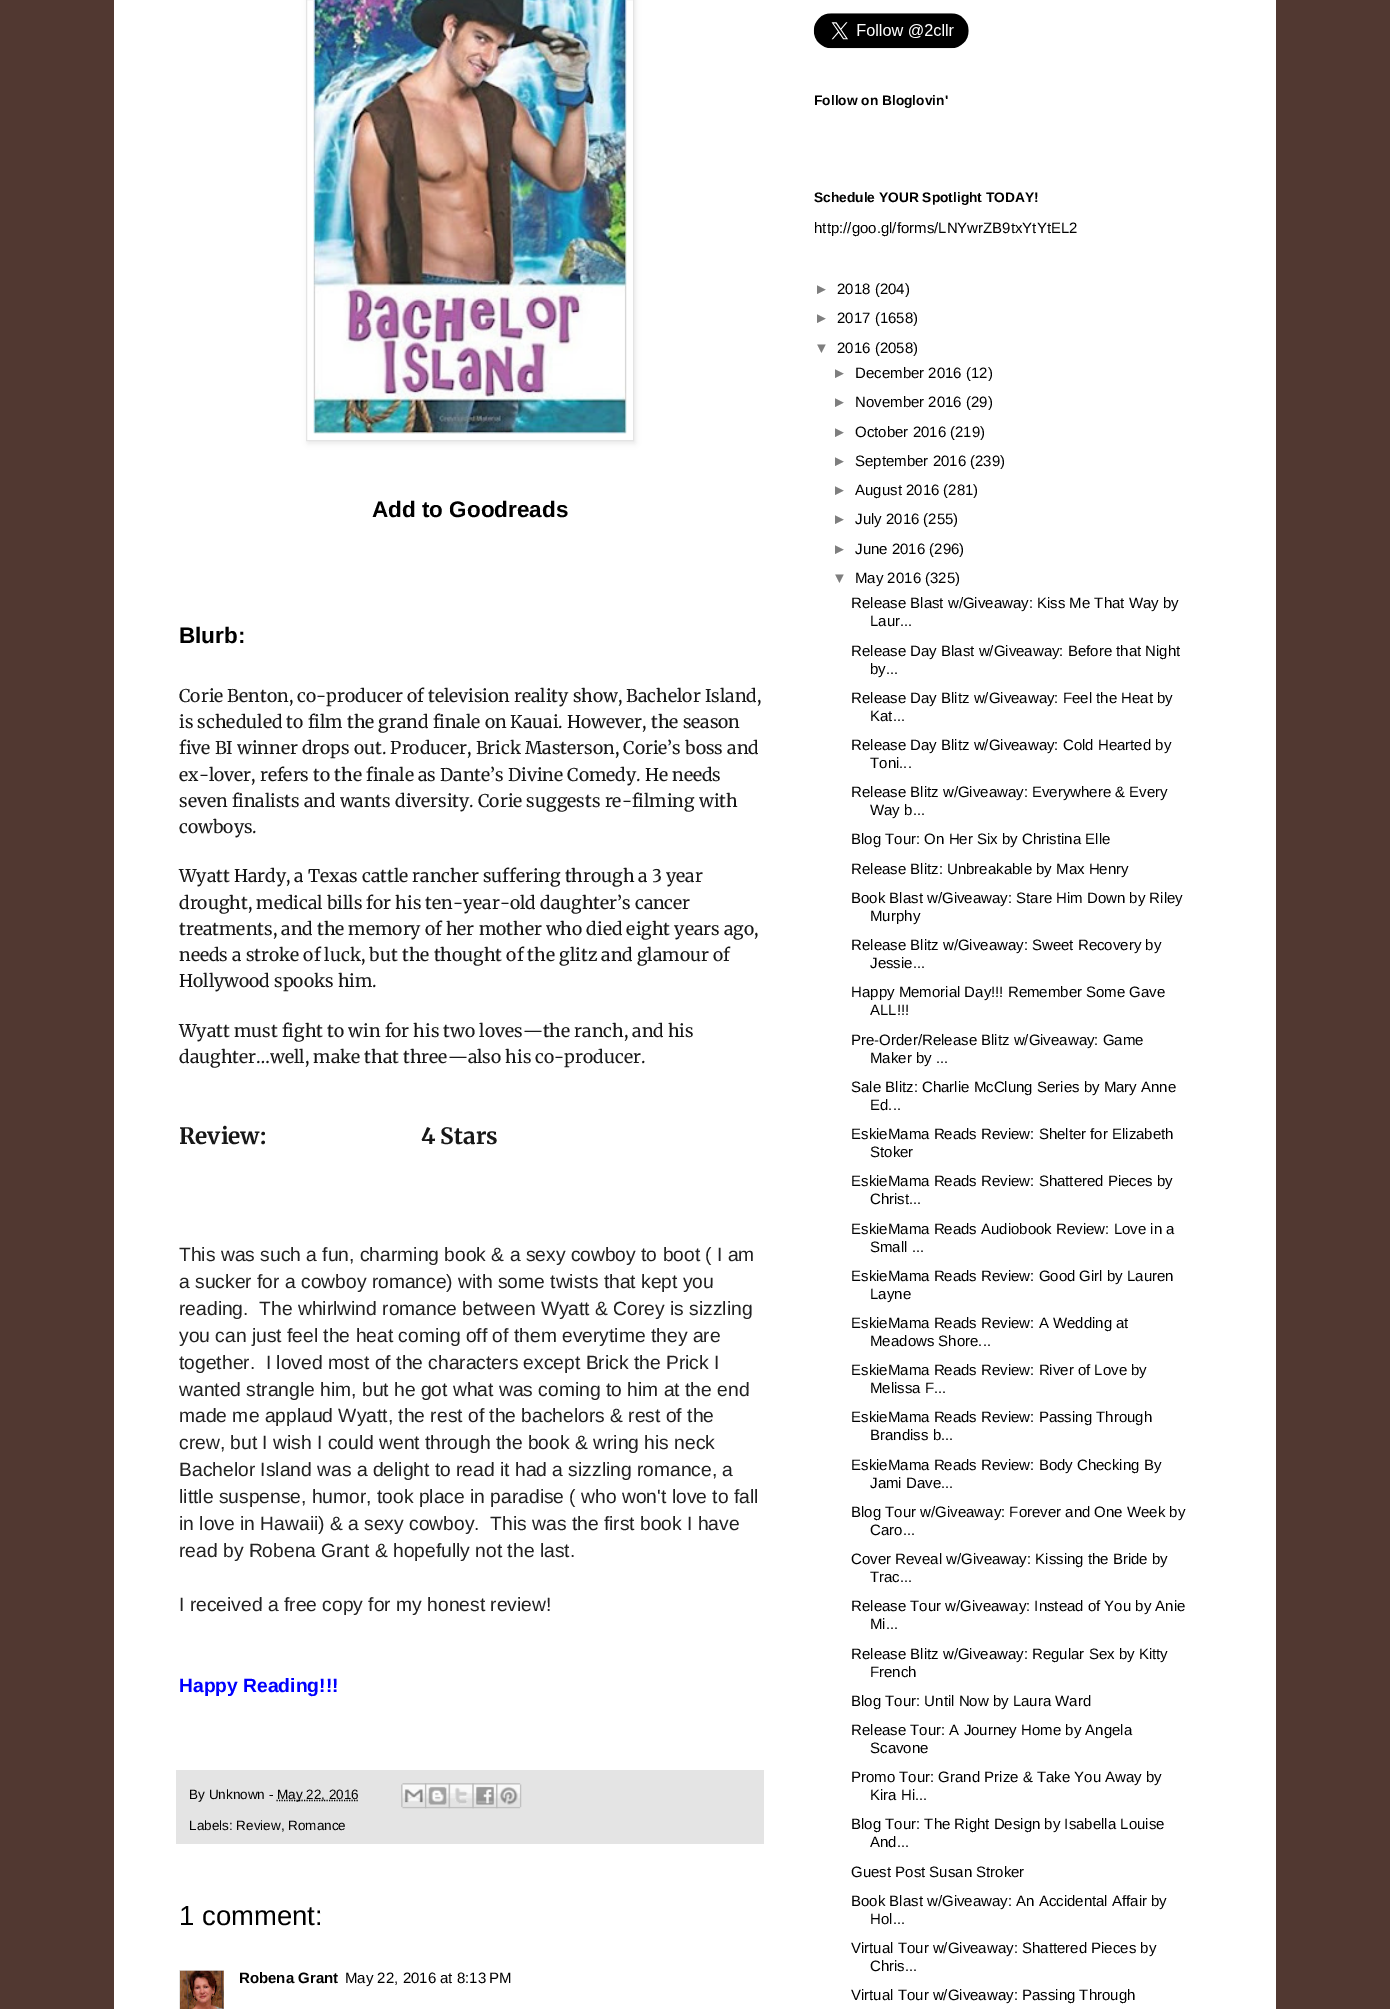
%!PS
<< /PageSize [1390 2009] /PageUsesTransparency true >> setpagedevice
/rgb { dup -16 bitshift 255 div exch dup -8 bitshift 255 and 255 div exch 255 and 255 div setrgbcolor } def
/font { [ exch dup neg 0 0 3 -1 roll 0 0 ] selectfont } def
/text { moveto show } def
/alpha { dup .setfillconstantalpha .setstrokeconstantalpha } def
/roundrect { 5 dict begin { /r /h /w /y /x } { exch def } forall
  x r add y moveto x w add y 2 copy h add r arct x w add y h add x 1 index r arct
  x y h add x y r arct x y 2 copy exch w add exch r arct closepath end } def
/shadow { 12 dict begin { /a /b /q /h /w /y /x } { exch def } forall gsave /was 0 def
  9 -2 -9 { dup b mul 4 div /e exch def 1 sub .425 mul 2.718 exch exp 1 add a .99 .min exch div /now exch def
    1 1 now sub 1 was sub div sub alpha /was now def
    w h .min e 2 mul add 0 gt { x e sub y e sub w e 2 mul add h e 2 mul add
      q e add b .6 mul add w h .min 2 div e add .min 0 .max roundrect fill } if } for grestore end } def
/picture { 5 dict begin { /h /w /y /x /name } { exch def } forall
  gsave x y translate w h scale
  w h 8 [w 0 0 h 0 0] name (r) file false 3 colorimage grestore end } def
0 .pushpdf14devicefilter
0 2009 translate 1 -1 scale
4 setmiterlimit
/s1 { /LiberationSans-Bold 22.5 font 16#000000 rgb } def
/s2 { /Merriweather-Regular 17.5 font 16#181818 rgb } def
/s3 { /Merriweather-Bold 22.5 font 16#181818 rgb } def
/s4 { /LiberationSans-Regular 19.25 font 16#222222 rgb } def
/s5 { /LiberationSans-Bold 19.25 font 16#0000FF rgb } def
/s6 { /LiberationSans-Regular 13.5 font 16#000000 rgb } def
/s7 { /LiberationSans-Regular 27.5 font 16#000000 rgb } def
/s8 { /LiberationSans-Bold 15 font 16#000000 rgb } def
/s9 { /LiberationSans-Regular 15 font 16#000000 rgb } def
/s10 { /LiberationSans-Bold 13.75 font 16#000000 rgb } def
/s11 { /LiberationSans-Regular 15 font 16#7E7E7E rgb } def
16#513831 rgb
0 0 1390 2009 rectfill
16#FFFFFF rgb
114 0 1162 2009 rectfill
16#000000 rgb
308 -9 327 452 0 3 0.1 shadow
16#FFFFFF rgb
306.5 -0.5 moveto 633.5 -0.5 lineto 633.5 440.5 lineto 306.5 440.5 lineto closepath gsave fill grestore
16#E4E4E4 rgb
stroke
(pic1.raw) 313 0 314 434 picture
s1
(Add to Goodreads) 372 517 text
(Blurb:) 179 643 text
s2
(Corie Benton, co-producer of television reality show, Bachelor Island,) 179 702 text
(is scheduled to film the grand finale on Kauai. However, the season) 179 728 text
(five BI winner drops out. Producer, Brick Masterson, Corie’s boss and) 179 754 text
(ex-lover, refers to the finale as Dante’s Divine Comedy. He needs) 179 781 text
(seven finalists and wants diversity. Corie suggests re-filming with) 179 807 text
(cowboys.) 179 833 text
(Wyatt Hardy, a Texas cattle rancher suffering through a 3 year) 179 882 text
(drought, medical bills for his ten-year-old daughter’s cancer) 179 909 text
(treatments, and the memory of her mother who died eight years ago,) 179 935 text
(needs a stroke of luck, but the thought of the glitz and glamour of) 179 961 text
(Hollywood spooks him.) 179 987 text
(Wyatt must fight to win for his two loves—the ranch, and his) 179 1037 text
(daughter…well, make that three—also his co-producer.) 179 1063 text
s3
(Review:                             4 Stars) 179 1144 text
s4
(This was such a fun, charming book & a sexy cowboy to boot \( I am) 179 1261 text
(a sucker for a cowboy romance\) with some twists that kept you) 179 1288 text
(reading.  The whirlwind romance between Wyatt & Corey is sizzling) 179 1315 text
(you can just feel the heat coming off of them everytime they are) 179 1342 text
(together.  I loved most of the characters except Brick the Prick I) 179 1369 text
(wanted strangle him, but he got what was coming to him at the end) 179 1396 text
(made me applaud Wyatt, the rest of the bachelors & rest of the) 179 1422 text
(crew, but I wish I could went through the book & wring his neck) 179 1449 text
(Bachelor Island was a delight to read it had a sizzling romance, a) 179 1476 text
(little suspense, humor, took place in paradise \( who won't love to fall) 179 1503 text
(in love in Hawaii\) & a sexy cowboy.  This was the first book I have) 179 1530 text
(read by Robena Grant & hopefully not the last.) 179 1557 text
(I received a free copy for my honest review!) 179 1611 text
s5
(Happy Reading!!!) 179 1692 text
16#E4E4E4 rgb
176 1770 588 74 rectfill
s6
(By Unknown -) 189 1799 text
1.2 setlinewidth
[1.25 1.25] 0 setdash
276.5 1800.5 moveto 358.5 1800.5 lineto stroke
(May 22, 2016) 277 1799 text
(pic2.raw) 401 1783 26 26 picture
(pic3.raw) 425 1783 25 26 picture
(pic4.raw) 448 1783 26 26 picture
(pic5.raw) 472 1783 26 26 picture
(pic6.raw) 496 1783 26 26 picture
(Labels: Review, Romance) 189 1830 text
s7
(1 comment:) 179 1925 text
gsave
179 1970 45 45 rectclip
16#E4E4E4 rgb
1 setlinewidth
[] 0 setdash
179.5 1970.5 46 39 rectstroke
grestore
(pic7.raw) 180 1970 44 39 picture
s8
(Robena Grant) 239 1983 text
s9
(May 22, 2016 at 8:13 PM) 345 1983 text
(pic8.raw) 813 13 156 36 picture
s10
(Follow on Bloglovin') 814 105 text
(Schedule YOUR Spotlight TODAY!) 814 202 text
s9
(http://goo.gl/forms/LNYwrZB9txYtYtEL2) 814 233 text
s11
(►) 814 294 text
s9
(2018 \(204\)) 837 294 text
s11
(►) 814 323 text
s9
(2017 \(1658\)) 837 323 text
s11
(▼) 814 353 text
s9
(2016 \(2058\)) 837 353 text
s11
(►) 832 378 text
s9
(December 2016 \(12\)) 855 378 text
s11
(►) 832 407 text
s9
(November 2016 \(29\)) 855 407 text
s11
(►) 832 437 text
s9
(October 2016 \(219\)) 855 437 text
s11
(►) 832 466 text
s9
(September 2016 \(239\)) 855 466 text
s11
(►) 832 495 text
s9
(August 2016 \(281\)) 855 495 text
s11
(►) 832 524 text
s9
(July 2016 \(255\)) 855 524 text
s11
(►) 832 554 text
s9
(June 2016 \(296\)) 855 554 text
s11
(▼) 832 583 text
s9
(May 2016 \(325\)) 855 583 text
(Release Blast w/Giveaway: Kiss Me That Way by) 851 608 text
(Laur...) 870 626 text
(Release Day Blast w/Giveaway: Before that Night) 851 656 text
(by...) 870 674 text
(Release Day Blitz w/Giveaway: Feel the Heat by) 851 703 text
(Kat...) 870 721 text
(Release Day Blitz w/Giveaway: Cold Hearted by) 851 750 text
(Toni...) 870 768 text
(Release Blitz w/Giveaway: Everywhere & Every) 851 797 text
(Way b...) 870 815 text
(Blog Tour: On Her Six by Christina Elle) 851 844 text
(Release Blitz: Unbreakable by Max Henry) 851 874 text
(Book Blast w/Giveaway: Stare Him Down by Riley) 851 903 text
(Murphy) 870 921 text
(Release Blitz w/Giveaway: Sweet Recovery by) 851 950 text
(Jessie...) 870 968 text
(Happy Memorial Day!!! Remember Some Gave) 851 997 text
(ALL!!!) 870 1015 text
(Pre-Order/Release Blitz w/Giveaway: Game) 851 1045 text
(Maker by ...) 870 1063 text
(Sale Blitz: Charlie McClung Series by Mary Anne) 851 1092 text
(Ed...) 870 1110 text
(EskieMama Reads Review: Shelter for Elizabeth) 851 1139 text
(Stoker) 870 1157 text
(EskieMama Reads Review: Shattered Pieces by) 851 1186 text
(Christ...) 870 1204 text
(EskieMama Reads Audiobook Review: Love in a) 851 1234 text
(Small ...) 870 1252 text
(EskieMama Reads Review: Good Girl by Lauren) 851 1281 text
(Layne) 870 1299 text
(EskieMama Reads Review: A Wedding at) 851 1328 text
(Meadows Shore...) 870 1346 text
(EskieMama Reads Review: River of Love by) 851 1375 text
(Melissa F...) 870 1393 text
(EskieMama Reads Review: Passing Through) 851 1422 text
(Brandiss b...) 870 1440 text
(EskieMama Reads Review: Body Checking By) 851 1470 text
(Jami Dave...) 870 1488 text
(Blog Tour w/Giveaway: Forever and One Week by) 851 1517 text
(Caro...) 870 1535 text
(Cover Reveal w/Giveaway: Kissing the Bride by) 851 1564 text
(Trac...) 870 1582 text
(Release Tour w/Giveaway: Instead of You by Anie) 851 1611 text
(Mi...) 870 1629 text
(Release Blitz w/Giveaway: Regular Sex by Kitty) 851 1659 text
(French) 870 1677 text
(Blog Tour: Until Now by Laura Ward) 851 1706 text
(Release Tour: A Journey Home by Angela) 851 1735 text
(Scavone) 870 1753 text
(Promo Tour: Grand Prize & Take You Away by) 851 1782 text
(Kira Hi...) 870 1800 text
(Blog Tour: The Right Design by Isabella Louise) 851 1829 text
(And...) 870 1847 text
(Guest Post Susan Stroker) 851 1877 text
(Book Blast w/Giveaway: An Accidental Affair by) 851 1906 text
(Hol...) 870 1924 text
(Virtual Tour w/Giveaway: Shattered Pieces by) 851 1953 text
(Chris...) 870 1971 text
(Virtual Tour w/Giveaway: Passing Through) 851 2000 text
.poppdf14devicefilter showpage
